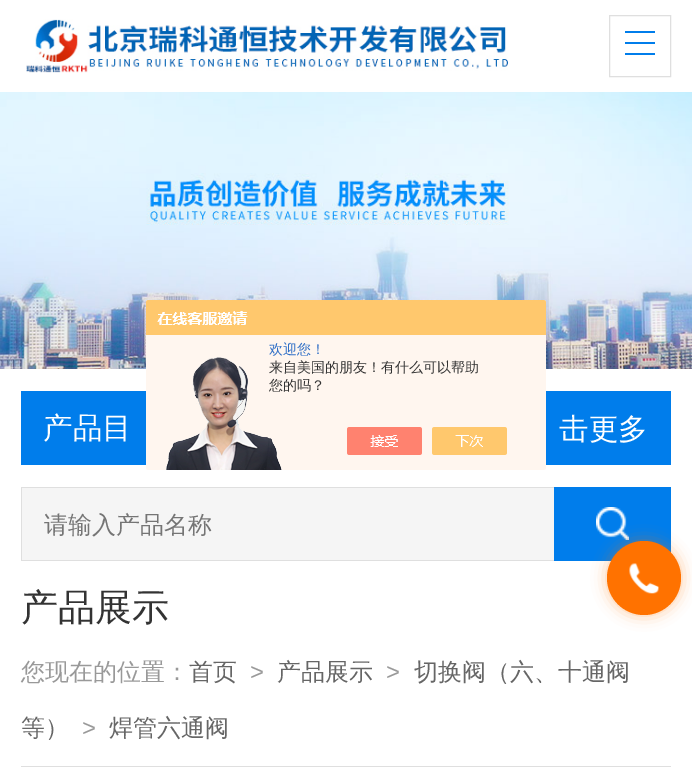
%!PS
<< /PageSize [692 769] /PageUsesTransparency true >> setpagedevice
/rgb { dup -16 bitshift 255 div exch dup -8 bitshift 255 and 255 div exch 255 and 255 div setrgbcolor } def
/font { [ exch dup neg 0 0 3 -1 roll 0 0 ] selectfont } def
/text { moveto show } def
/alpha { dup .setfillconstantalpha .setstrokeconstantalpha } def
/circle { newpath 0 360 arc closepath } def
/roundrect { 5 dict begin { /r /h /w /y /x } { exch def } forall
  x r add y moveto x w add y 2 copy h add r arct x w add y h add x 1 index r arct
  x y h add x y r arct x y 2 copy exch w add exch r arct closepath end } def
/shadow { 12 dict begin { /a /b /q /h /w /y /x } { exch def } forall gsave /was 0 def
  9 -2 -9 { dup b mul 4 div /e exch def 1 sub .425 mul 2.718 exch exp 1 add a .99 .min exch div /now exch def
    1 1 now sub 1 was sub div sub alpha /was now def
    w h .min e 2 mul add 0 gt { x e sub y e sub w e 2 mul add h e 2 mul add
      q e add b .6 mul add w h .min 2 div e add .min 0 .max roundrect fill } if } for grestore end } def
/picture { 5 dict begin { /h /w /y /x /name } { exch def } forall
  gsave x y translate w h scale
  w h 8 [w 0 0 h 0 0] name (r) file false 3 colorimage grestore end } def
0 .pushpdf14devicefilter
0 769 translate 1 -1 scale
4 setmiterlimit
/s1 { /WenQuanYiZenHei-Medium 14 font 16#2E6EC6 rgb } def
/s2 { /WenQuanYiZenHei-Medium 14 font 16#333333 rgb } def
/s3 { /WenQuanYiZenHei-Medium 29.5 font 16#FFFFFF rgb } def
/s4 { /WenQuanYiZenHei-Medium 24 font 16#757575 rgb } def
/s5 { /WenQuanYiZenHei-Medium 37 font 16#333333 rgb } def
/s6 { /WenQuanYiZenHei-Medium 24 font 16#999999 rgb } def
/s7 { /WenQuanYiZenHei-Medium 24 font 16#666666 rgb } def
/s8 { /LiberationSans-Regular 24 font 16#999999 rgb } def
16#FFFFFF rgb
0 0 692 769 rectfill
(pic1.raw) 26 19 482 54 picture
16#DFDFDF rgb
609.5 15.5 61 61 rectstroke
16#007DEB rgb
625 31 30 2 rectfill
625 42 30 2 rectfill
625 53 30 2 rectfill
(pic2.raw) 0 92 692 277 picture
21 391 650 74 rectfill
(pic3.raw) 146 300 400 170 picture
s1
(欢迎您！) 269 354 text
s2
(来自美国的朋友！有什么可以帮助) 269 372 text
(您的吗？) 269 390 text
s3
(产品目) 43 438 text
(击更多) 559 439 text
16#F5F5F5 rgb
22 488 532 72 rectfill
16#DFDFDF rgb
21 487 533 1 rectfill
21 560 533 1 rectfill
21 487 1 74 rectfill
s4
(请输入产品名称) 44 533 text
16#007DEB rgb
554 487 117 74 rectfill
(pic4.raw) 596 507 33 33 picture
16#DFDFDF rgb
21 766 650 1 rectfill
s5
(产品展示) 21 620 text
s6
(您现在的位置：) 21 680 text
s7
(首页) 189 680 text
s8
(>) 250 680 text
s7
(产品展示) 277 680 text
s8
(>) 386 680 text
s7
(切换阀（六、十通阀) 414 680 text
(等）) 21 736 text
s8
(>) 82 736 text
s7
(焊管六通阀) 109 736 text
16#FF7200 rgb
607 541 74 74 37 7.5 0.4 shadow
644 578 37 circle fill
(pic5.raw) 629 563 30 31 picture
.poppdf14devicefilter showpage
